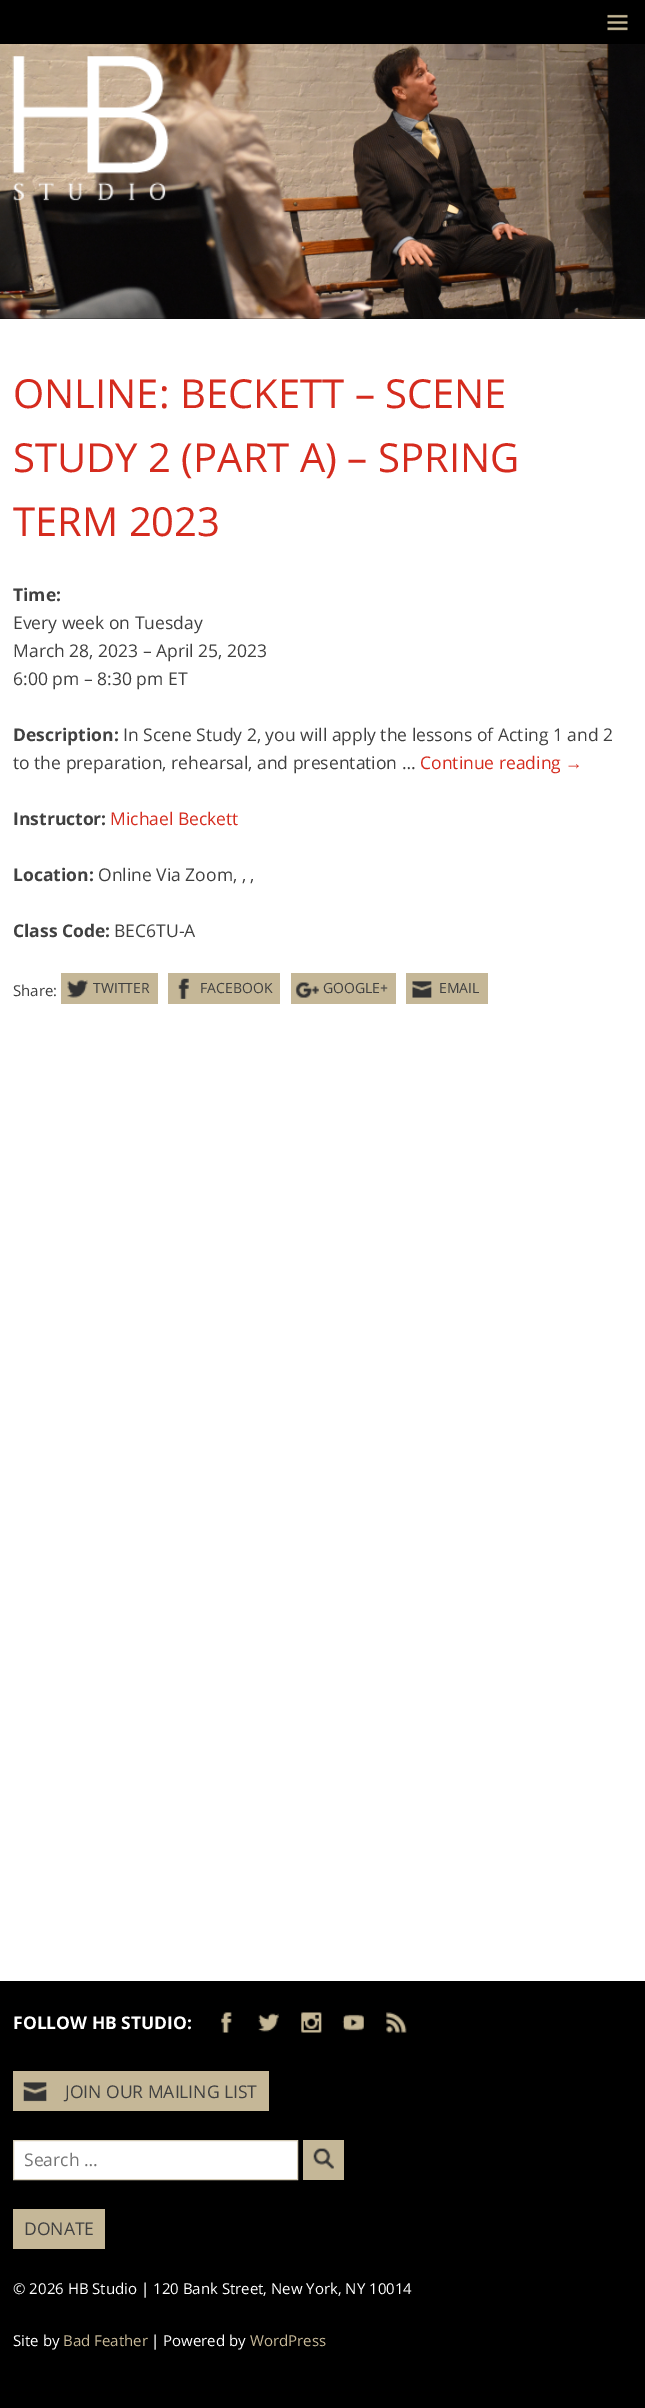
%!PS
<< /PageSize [645 2408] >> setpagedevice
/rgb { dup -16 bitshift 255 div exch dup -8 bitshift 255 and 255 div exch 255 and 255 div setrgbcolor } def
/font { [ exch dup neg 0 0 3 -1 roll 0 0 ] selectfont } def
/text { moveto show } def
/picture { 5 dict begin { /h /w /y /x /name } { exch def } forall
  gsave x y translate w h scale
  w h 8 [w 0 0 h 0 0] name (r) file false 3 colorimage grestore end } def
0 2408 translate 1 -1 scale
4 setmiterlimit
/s1 { /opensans-Regular 40 font 16#D52B1E rgb } def
/s2 { /opensans-Bold 17.5 font 16#404040 rgb } def
/s3 { /opensans-Regular 17.5 font 16#404040 rgb } def
/s4 { /opensans-Regular 17.5 font 16#D52B1E rgb } def
/s5 { /LiberationSans-Regular 17.5 font 16#D52B1E rgb } def
/s6 { /opensans-Regular 15 font 16#404040 rgb } def
/s7 { /opensans-Regular 14 font 16#404040 rgb } def
/s8 { /opensans-Bold 17.5 font 16#FFFFFF rgb } def
/s9 { /opensans-Regular 17.5 font 16#757575 rgb } def
/s10 { /opensans-Regular 15 font 16#FFFFFF rgb } def
/s11 { /opensans-Regular 15 font 16#C5B797 rgb } def
16#000000 rgb
0 0 645 2408 rectfill
(pic1.raw) 607 14 21 17 picture
(pic2.raw) 0 44 645 275 picture
(pic3.raw) 12 56 157 145 picture
16#FFFFFF rgb
0 319 645 1662 rectfill
s1
(ONLINE: BECKETT – SCENE) 13 408 text
(STUDY 2 \(PART A\) – SPRING) 13 472 text
(TERM 2023) 13 536 text
s2
(Time:) 13 601 text
s3
(Every week on Tuesday) 13 629 text
(March 28, 2023 – April 25, 2023) 13 657 text
(6:00 pm – 8:30 pm ET) 13 685 text
s2
(Description:) 13 741 text
s3
(In Scene Study 2, you will apply the lessons of Acting 1 and 2) 123 741 text
(to the preparation, rehearsal, and presentation …) 13 769 text
s4
(Continue reading) 420 769 text
s5
(→) 565 769 text
s2
(Instructor:) 13 825 text
s4
(Michael Beckett) 110 825 text
s2
(Location:) 13 881 text
s3
(Online Via Zoom, , ,) 98 881 text
s2
(Class Code:) 13 937 text
s3
(BEC6TU-A) 114 937 text
s6
(Share:) 13 996 text
16#C5B797 rgb
61 973 97 31 rectfill
(pic4.raw) 67 979 21 19 picture
s7
(TWITTER) 93 993 text
16#C5B797 rgb
168 973 112 31 rectfill
(pic5.raw) 178 978 11 21 picture
s7
(FACEBOOK) 200 993 text
16#C5B797 rgb
291 973 105 31 rectfill
(pic6.raw) 295 982 24 16 picture
s7
(GOOGLE+) 323 993 text
16#C5B797 rgb
406 973 82 31 rectfill
(pic7.raw) 412 981 20 17 picture
s7
(EMAIL) 439 993 text
s8
(FOLLOW HB STUDIO:) 13 2029 text
(pic8.raw) 221 2012 11 21 picture
(pic9.raw) 258 2013 21 19 picture
(pic10.raw) 301 2012 21 21 picture
(pic11.raw) 342 2014 22 17 picture
(pic12.raw) 386 2012 21 21 picture
16#C5B797 rgb
13 2071 256 40 rectfill
(pic13.raw) 23 2082 24 20 picture
s3
(JOIN OUR MAILING LIST) 65 2098 text
16#FFFFFF rgb
13.5 2140.5 moveto 297.5 2140.5 lineto 297.5 2179.5 lineto 13.5 2179.5 lineto closepath gsave fill grestore
16#D7CEB8 rgb
stroke
s9
(Search …) 24 2166 text
16#C5B797 rgb
303 2140 41 40 rectfill
(pic14.raw) 313 2148 21 21 picture
13 2209 92 40 rectfill
s3
(DONATE) 24 2235 text
s10
(© 2026 HB Studio | 120 Bank Street, New York, NY 10014) 13 2294 text
(Site by) 13 2346 text
s11
(Bad Feather) 63 2346 text
s10
(| Powered by) 151 2346 text
s11
(WordPress) 250 2346 text
showpage
